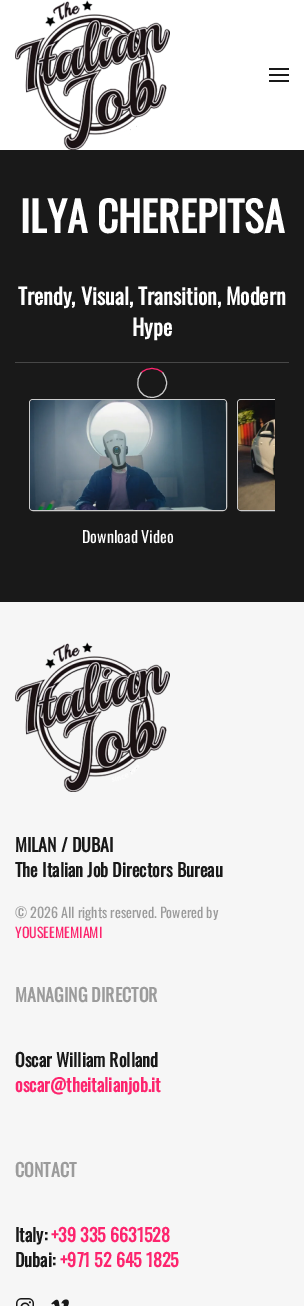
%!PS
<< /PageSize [304 1306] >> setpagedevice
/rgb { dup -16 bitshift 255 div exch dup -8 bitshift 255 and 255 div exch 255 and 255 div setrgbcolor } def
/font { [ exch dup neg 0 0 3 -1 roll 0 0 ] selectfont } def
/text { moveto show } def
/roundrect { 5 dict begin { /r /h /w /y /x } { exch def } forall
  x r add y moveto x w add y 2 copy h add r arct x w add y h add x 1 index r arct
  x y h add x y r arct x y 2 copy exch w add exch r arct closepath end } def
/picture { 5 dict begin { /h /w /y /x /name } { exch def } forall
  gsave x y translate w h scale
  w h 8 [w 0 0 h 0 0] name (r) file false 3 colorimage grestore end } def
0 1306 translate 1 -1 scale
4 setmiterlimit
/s1 { /Oswald-Bold 41.5 font 16#FFFFFF rgb } def
/s2 { /Oswald-Bold 22 font 16#FFFFFF rgb } def
/s3 { /Oswald-Regular 16 font 16#FFFFFF rgb } def
/s4 { /Oswald-Bold 18 font 16#191919 rgb } def
/s5 { /Oswald-Regular 14 font 16#9B9B9B rgb } def
/s6 { /Oswald-Regular 14 font 16#FD256E rgb } def
/s7 { /Oswald-Bold 18 font 16#9B9B9B rgb } def
/s8 { /Oswald-Bold 18 font 16#FD256E rgb } def
16#FFFFFF rgb
0 0 304 1306 rectfill
(pic1.raw) 15 0 155 150 picture
16#191919 rgb
269 68 20 2 rectfill
269 74 20 2 rectfill
269 80 20 2 rectfill
0 150 304 452 rectfill
s1
(ILYA CHEREPITSA) 20 233 text
s2
(Trendy, Visual, Transition, Modern) 18 305 text
(Hype) 132 336 text
16#474747 rgb
15 362 274 1 rectfill
16#FD256E rgb
141.5 372.5 moveto 147.5 367 156.5 367 162.5 372.5 curveto stroke
16#CCCCCC rgb
162.5 372.5 moveto 165 375.5 166.5 379 166.5 383 curveto 166.5 400.5 141 403 138 386 curveto 137 381 138.5 376 141.5 372.5 curveto stroke
gsave
29 399 246 147 rectclip
237.5 399.5 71 111 3.5 roundrect stroke
grestore
(pic2.raw) 238 400 37 110 picture
29.5 399.5 197 111 3.5 roundrect stroke
(pic3.raw) 30 400 196 110 picture
s3
(Download Video) 82 543 text
16#F6F6F6 rgb
0 602 304 704 rectfill
(pic4.raw) 15 642 155 150 picture
s4
(MILAN / DUBAI) 15 852 text
(The Italian Job Directors Bureau) 15 877 text
s5
(© 2026 All rights reserved. Powered by) 15 918 text
s6
(YOUSEEMEMIAMI) 15 938 text
s7
(MANAGING DIRECTOR) 15 1002 text
s4
(Oscar William Rolland) 15 1067 text
s8
(oscar@theitalianjob.it) 15 1092 text
s7
(CONTACT) 15 1177 text
s4
(Italy:) 15 1242 text
s8
(+39 335 6631528) 51 1242 text
s4
(Dubai:) 15 1267 text
s8
(+971 52 645 1825) 60 1267 text
(pic5.raw) 16 1298 18 8 picture
(pic6.raw) 51 1299 18 7 picture
showpage
